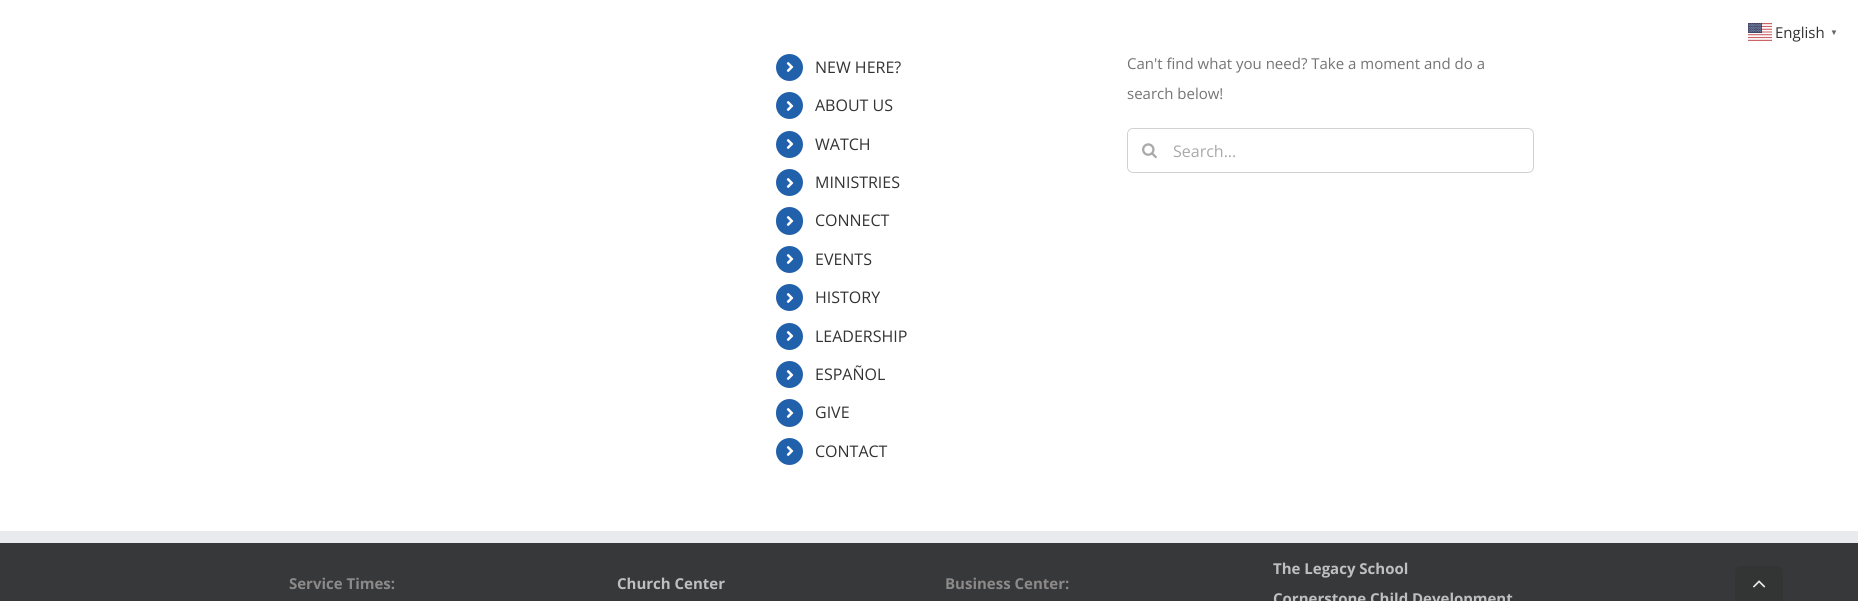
#include <cairo/cairo.h>
#include <math.h>
#include <stddef.h>


static void rounded_rect(cairo_t *cr, double x, double y, double w, double h, double r) {
  cairo_new_sub_path(cr);
  cairo_arc(cr, x + w - r, y + h - r, r, 0, M_PI / 2);
  cairo_arc(cr, x + r, y + h - r, r, M_PI / 2, M_PI);
  cairo_arc(cr, x + r, y + r, r, M_PI, 1.5 * M_PI);
  cairo_arc(cr, x + w - r, y + r, r, 1.5 * M_PI, 2 * M_PI);
  cairo_close_path(cr);
}

static void draw_image(cairo_t *cr, const char *path, double x, double y, double w, double h) {
  cairo_surface_t *image = cairo_image_surface_create_from_png(path);
  cairo_save(cr);
  cairo_set_source_surface(cr, image, x, y);
  cairo_rectangle(cr, x, y, w, h);
  cairo_fill(cr);
  cairo_restore(cr);
  cairo_surface_destroy(image);
}

static void draw(cairo_t *cr) {
  cairo_set_source_rgb(cr, 1, 1, 1);
  cairo_paint(cr);
  draw_image(cr, "images/1.png", 1748, 23, 24, 18);
  cairo_set_source_rgb(cr, 33 / 255.0, 97 / 255.0, 171 / 255.0);
  cairo_arc(cr, 789.5, 67.5, 13.5, 0, 2 * M_PI);
  cairo_fill(cr);
  draw_image(cr, "images/2.png", 786, 62, 8, 10);
  cairo_arc(cr, 789.5, 105.5, 13.5, 0, 2 * M_PI);
  cairo_fill(cr);
  draw_image(cr, "images/2.png", 786, 101, 8, 10);
  cairo_arc(cr, 789.5, 144.5, 13.5, 0, 2 * M_PI);
  cairo_fill(cr);
  draw_image(cr, "images/2.png", 786, 139, 8, 10);
  cairo_arc(cr, 789.5, 182.5, 13.5, 0, 2 * M_PI);
  cairo_fill(cr);
  draw_image(cr, "images/2.png", 786, 178, 8, 10);
  rounded_rect(cr, 776, 207, 27, 28, 13.5);
  cairo_fill(cr);
  draw_image(cr, "images/2.png", 786, 216, 8, 10);
  cairo_arc(cr, 789.5, 259.5, 13.5, 0, 2 * M_PI);
  cairo_fill(cr);
  draw_image(cr, "images/2.png", 786, 254, 8, 10);
  cairo_arc(cr, 789.5, 297.5, 13.5, 0, 2 * M_PI);
  cairo_fill(cr);
  draw_image(cr, "images/2.png", 786, 293, 8, 10);
  cairo_arc(cr, 789.5, 336.5, 13.5, 0, 2 * M_PI);
  cairo_fill(cr);
  draw_image(cr, "images/2.png", 786, 331, 8, 10);
  cairo_arc(cr, 789.5, 374.5, 13.5, 0, 2 * M_PI);
  cairo_fill(cr);
  draw_image(cr, "images/2.png", 786, 370, 8, 10);
  rounded_rect(cr, 776, 399, 27, 28, 13.5);
  cairo_fill(cr);
  draw_image(cr, "images/2.png", 786, 408, 8, 10);
  cairo_arc(cr, 789.5, 451.5, 13.5, 0, 2 * M_PI);
  cairo_fill(cr);
  draw_image(cr, "images/2.png", 786, 446, 8, 10);
  rounded_rect(cr, 1127.5, 128.5, 406, 44, 5.5);
  cairo_set_source_rgb(cr, 210 / 255.0, 210 / 255.0, 210 / 255.0);
  cairo_set_line_width(cr, 1);
  cairo_stroke(cr);
  draw_image(cr, "images/3.png", 1142, 143, 15, 16);
  cairo_set_source_rgb(cr, 54 / 255.0, 56 / 255.0, 57 / 255.0);
  cairo_rectangle(cr, 0, 543, 1858, 58);
  cairo_fill(cr);
  cairo_set_source_rgb(cr, 233 / 255.0, 234 / 255.0, 238 / 255.0);
  cairo_rectangle(cr, 0, 531, 1858, 12);
  cairo_fill(cr);
  cairo_set_source_rgb(cr, 51 / 255.0, 52 / 255.0, 52 / 255.0);
  cairo_new_path(cr);
  cairo_move_to(cr, 1741, 566);
  cairo_line_to(cr, 1777, 566);
  cairo_curve_to(cr, 1780.5, 566, 1783, 568.5, 1783, 572);
  cairo_line_to(cr, 1783, 601);
  cairo_line_to(cr, 1735, 601);
  cairo_line_to(cr, 1735, 572);
  cairo_curve_to(cr, 1735, 568.5, 1737.5, 566, 1741, 566);
  cairo_close_path(cr);
  cairo_fill(cr);
  draw_image(cr, "images/4.png", 1753, 580, 13, 8);
  cairo_select_font_face(cr, "Open Sans", CAIRO_FONT_SLANT_NORMAL, CAIRO_FONT_WEIGHT_NORMAL);
  cairo_set_font_size(cr, 15);
  cairo_set_source_rgb(cr, 51 / 255.0, 51 / 255.0, 51 / 255.0);
  cairo_move_to(cr, 1775, 38);
  cairo_show_text(cr, "English");
  cairo_select_font_face(cr, "Liberation Sans", CAIRO_FONT_SLANT_NORMAL, CAIRO_FONT_WEIGHT_BOLD);
  cairo_set_font_size(cr, 8);
  cairo_set_source_rgb(cr, 102 / 255.0, 102 / 255.0, 102 / 255.0);
  cairo_move_to(cr, 1830, 35);
  cairo_show_text(cr, "▼");
  cairo_select_font_face(cr, "Open Sans", CAIRO_FONT_SLANT_NORMAL, CAIRO_FONT_WEIGHT_NORMAL);
  cairo_set_font_size(cr, 16);
  cairo_set_source_rgb(cr, 51 / 255.0, 51 / 255.0, 51 / 255.0);
  cairo_move_to(cr, 815, 73);
  cairo_show_text(cr, "NEW HERE?");
  cairo_move_to(cr, 815, 111);
  cairo_show_text(cr, "ABOUT US");
  cairo_move_to(cr, 815, 150);
  cairo_show_text(cr, "WATCH");
  cairo_move_to(cr, 815, 188);
  cairo_show_text(cr, "MINISTRIES");
  cairo_move_to(cr, 815, 226);
  cairo_show_text(cr, "CONNECT");
  cairo_move_to(cr, 815, 265);
  cairo_show_text(cr, "EVENTS");
  cairo_move_to(cr, 815, 303);
  cairo_show_text(cr, "HISTORY");
  cairo_move_to(cr, 815, 342);
  cairo_show_text(cr, "LEADERSHIP");
  cairo_move_to(cr, 815, 380);
  cairo_show_text(cr, "ESPAÑOL");
  cairo_move_to(cr, 815, 418);
  cairo_show_text(cr, "GIVE");
  cairo_move_to(cr, 815, 457);
  cairo_show_text(cr, "CONTACT");
  cairo_set_font_size(cr, 15);
  cairo_set_source_rgb(cr, 116 / 255.0, 116 / 255.0, 116 / 255.0);
  cairo_move_to(cr, 1127, 69);
  cairo_show_text(cr, "Can't find what you need? Take a moment and do a");
  cairo_move_to(cr, 1127, 99);
  cairo_show_text(cr, "search below!");
  cairo_set_font_size(cr, 16);
  cairo_set_source_rgb(cr, 170 / 255.0, 169 / 255.0, 169 / 255.0);
  cairo_move_to(cr, 1173, 157);
  cairo_show_text(cr, "Search...");
  cairo_select_font_face(cr, "Open Sans", CAIRO_FONT_SLANT_NORMAL, CAIRO_FONT_WEIGHT_BOLD);
  cairo_set_font_size(cr, 15);
  cairo_set_source_rgb(cr, 140 / 255.0, 137 / 255.0, 137 / 255.0);
  cairo_move_to(cr, 289, 589);
  cairo_show_text(cr, "Service Times:");
  cairo_set_source_rgb(cr, 191 / 255.0, 191 / 255.0, 191 / 255.0);
  cairo_move_to(cr, 617, 589);
  cairo_show_text(cr, "Church Center");
  cairo_set_source_rgb(cr, 140 / 255.0, 137 / 255.0, 137 / 255.0);
  cairo_move_to(cr, 945, 589);
  cairo_show_text(cr, "Business Center:");
  cairo_set_source_rgb(cr, 191 / 255.0, 191 / 255.0, 191 / 255.0);
  cairo_move_to(cr, 1273, 574);
  cairo_show_text(cr, "The Legacy School");
  cairo_move_to(cr, 1273, 604);
  cairo_show_text(cr, "Cornerstone Child Development");
}

int main(void) {
  cairo_surface_t *surface = cairo_image_surface_create(CAIRO_FORMAT_RGB24, 1858, 601);
  cairo_t *cr = cairo_create(surface);
  cairo_font_options_t *options = cairo_font_options_create();
  cairo_font_options_set_hint_metrics(options, CAIRO_HINT_METRICS_OFF);
  cairo_font_options_set_hint_style(options, CAIRO_HINT_STYLE_NONE);
  cairo_set_font_options(cr, options);
  cairo_set_miter_limit(cr, 4);
  draw(cr);
  cairo_surface_write_to_png(surface, "out.png");
  cairo_font_options_destroy(options);
  cairo_destroy(cr);
  cairo_surface_destroy(surface);
  return 0;
}
